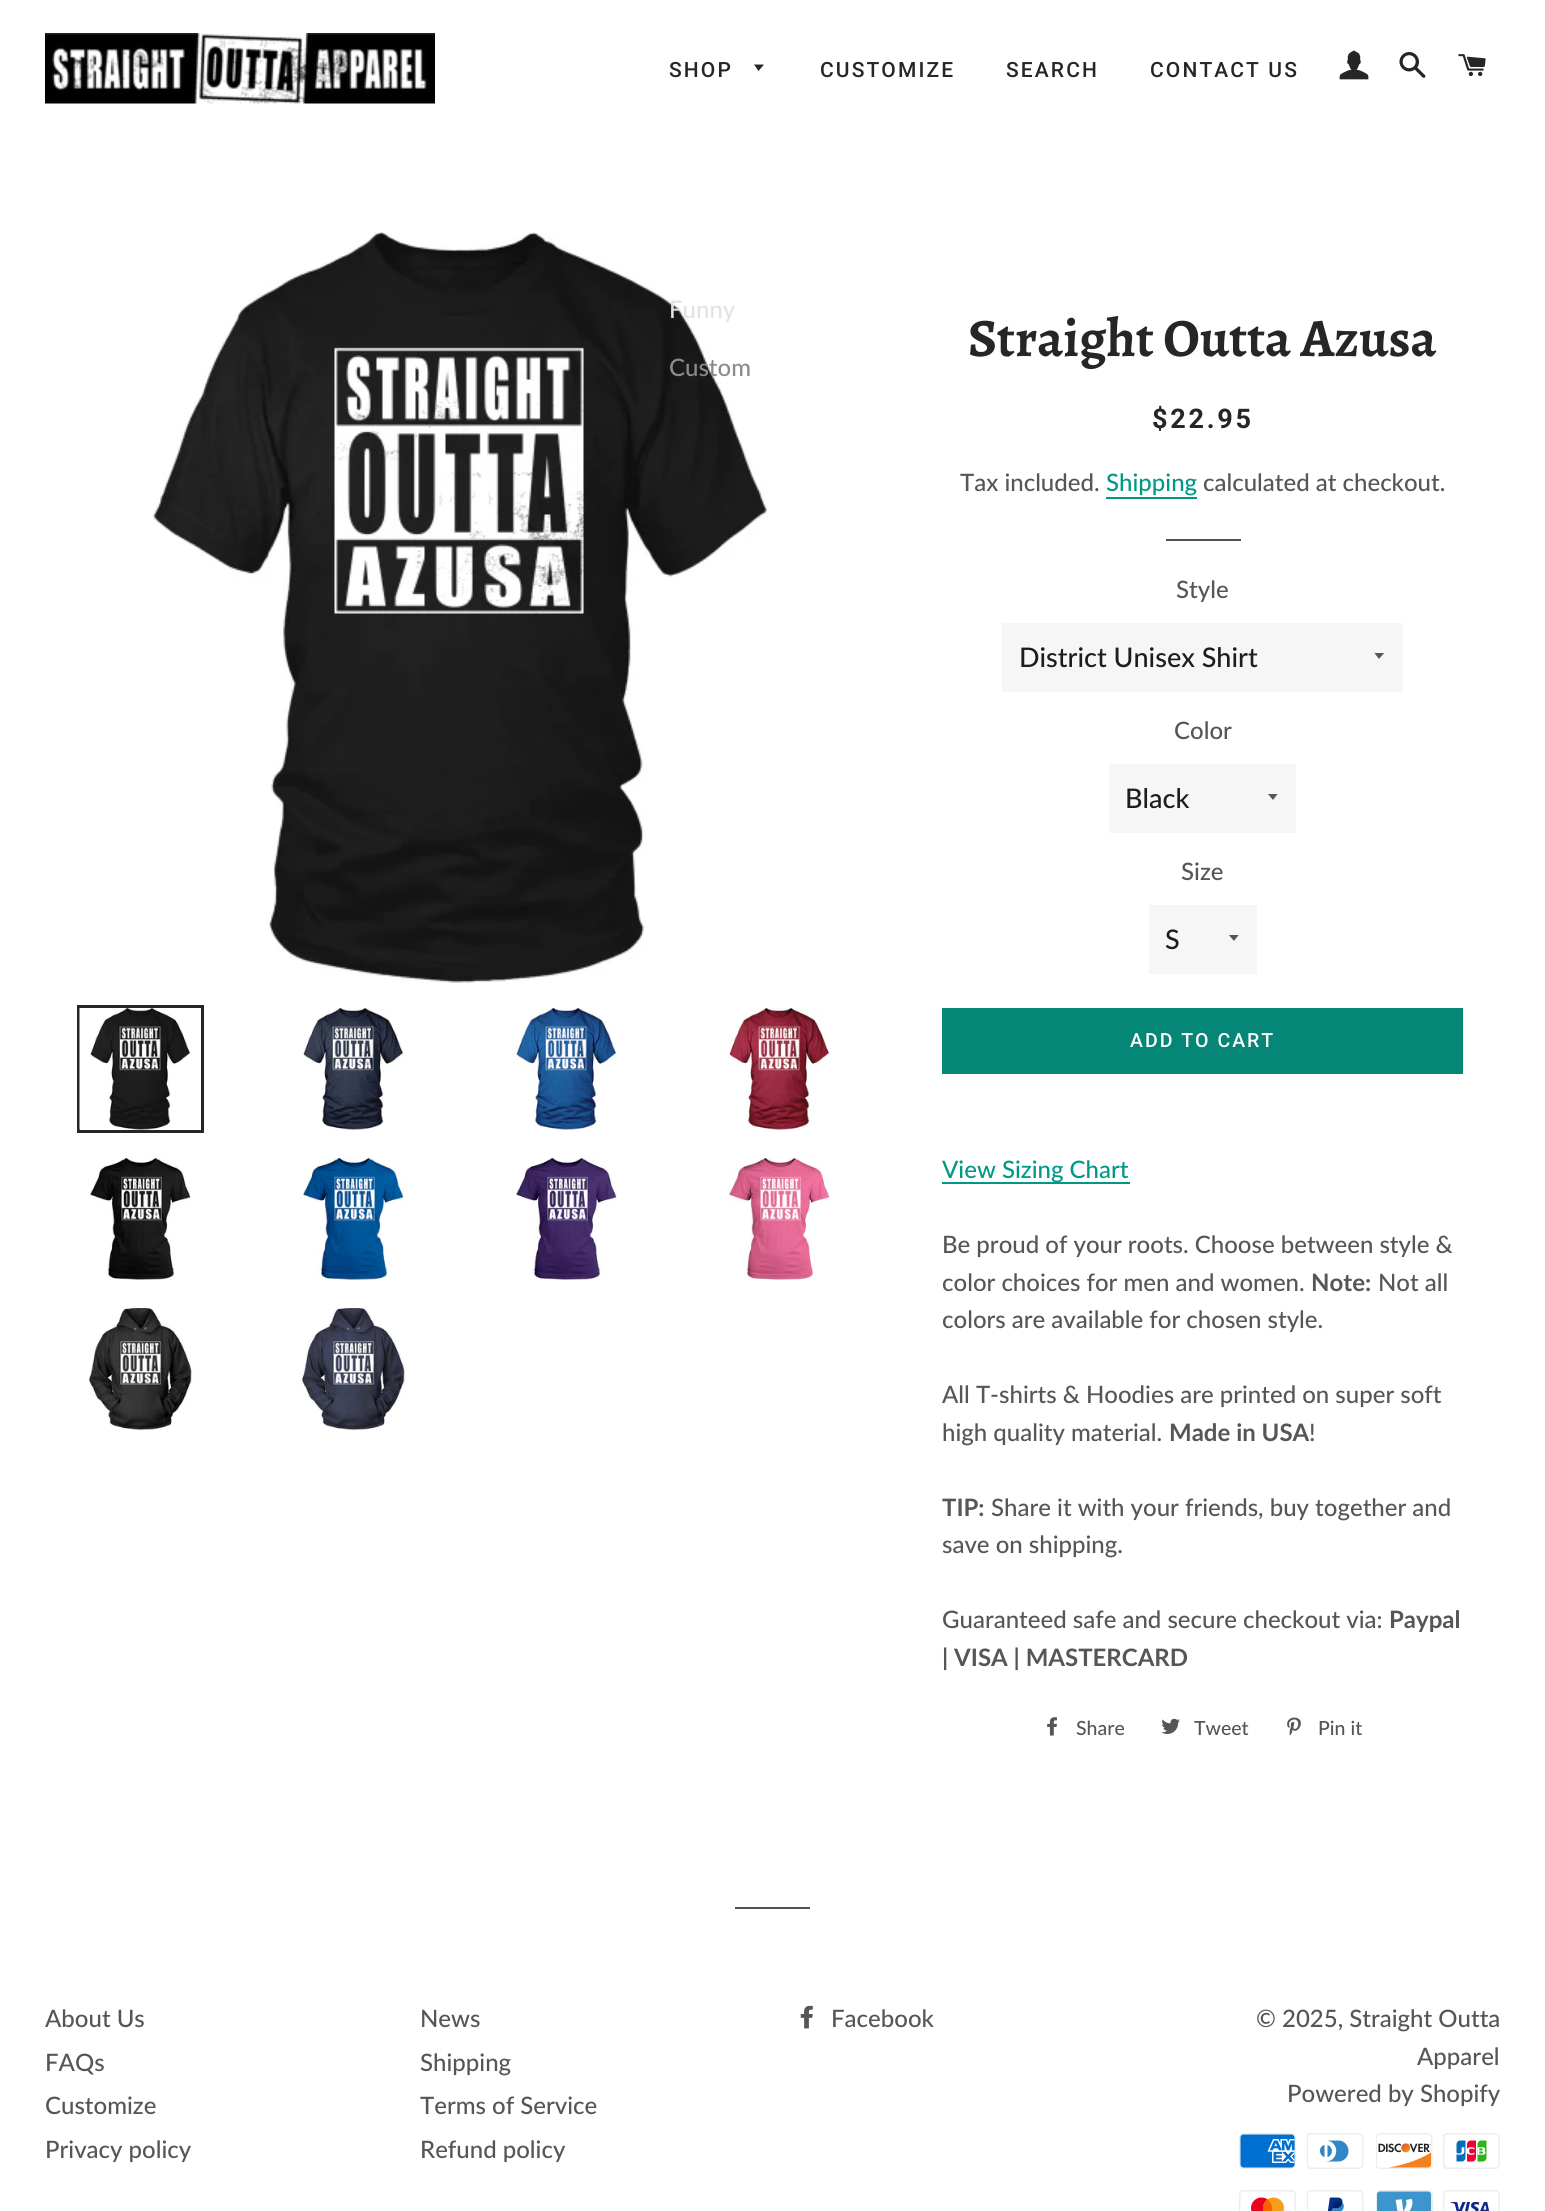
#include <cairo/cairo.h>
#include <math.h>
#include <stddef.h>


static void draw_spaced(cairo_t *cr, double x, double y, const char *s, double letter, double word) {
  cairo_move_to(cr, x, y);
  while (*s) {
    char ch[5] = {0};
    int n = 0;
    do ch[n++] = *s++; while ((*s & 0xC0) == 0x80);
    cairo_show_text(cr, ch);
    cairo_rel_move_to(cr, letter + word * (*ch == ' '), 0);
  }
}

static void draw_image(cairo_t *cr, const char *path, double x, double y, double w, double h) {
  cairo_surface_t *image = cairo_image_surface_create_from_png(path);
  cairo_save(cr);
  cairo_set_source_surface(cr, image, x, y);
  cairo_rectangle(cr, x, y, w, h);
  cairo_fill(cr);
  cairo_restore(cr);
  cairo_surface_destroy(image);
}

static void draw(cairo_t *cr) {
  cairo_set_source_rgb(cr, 1, 1, 1);
  cairo_paint(cr);
  draw_image(cr, "images/1.png", 45, 33, 390, 71);
  cairo_set_source_rgb(cr, 38 / 255.0, 38 / 255.0, 38 / 255.0);
  cairo_new_path(cr);
  cairo_move_to(cr, 754, 64.5);
  cairo_line_to(cr, 758.5, 71);
  cairo_line_to(cr, 764, 64.5);
  cairo_close_path(cr);
  cairo_fill(cr);
  draw_image(cr, "images/2.png", 1339, 50, 30, 30);
  draw_image(cr, "images/3.png", 1399, 52, 27, 26);
  draw_image(cr, "images/4.png", 1458, 54, 28, 23);
  draw_image(cr, "images/5.png", 152, 232, 617, 751);
  cairo_rectangle(cr, 78.5, 1006.5, 124, 125);
  cairo_set_line_width(cr, 3);
  cairo_stroke(cr);
  draw_image(cr, "images/6.png", 79, 1008, 112, 122);
  draw_image(cr, "images/7.png", 303, 1008, 101, 122);
  draw_image(cr, "images/8.png", 512, 1008, 105, 122);
  draw_image(cr, "images/9.png", 725, 1008, 106, 122);
  draw_image(cr, "images/10.png", 89, 1158, 102, 122);
  draw_image(cr, "images/11.png", 302, 1158, 102, 122);
  draw_image(cr, "images/12.png", 516, 1158, 101, 122);
  draw_image(cr, "images/13.png", 729, 1158, 101, 122);
  draw_image(cr, "images/14.png", 89, 1308, 104, 122);
  draw_image(cr, "images/15.png", 302, 1308, 104, 122);
  cairo_set_source_rgb(cr, 1 / 255.0, 152 / 255.0, 135 / 255.0);
  cairo_rectangle(cr, 1106, 497, 91, 2);
  cairo_fill(cr);
  cairo_set_source_rgb(cr, 81 / 255.0, 81 / 255.0, 81 / 255.0);
  cairo_rectangle(cr, 1166, 539, 75, 2);
  cairo_fill(cr);
  cairo_set_source_rgb(cr, 246 / 255.0, 246 / 255.0, 246 / 255.0);
  cairo_rectangle(cr, 1002, 623, 401, 69);
  cairo_fill(cr);
  cairo_save(cr);
  cairo_rectangle(cr, 1374, 653, 12, 7);
  cairo_clip(cr);
  cairo_set_source_rgb(cr, 86 / 255.0, 86 / 255.0, 86 / 255.0);
  cairo_new_path(cr);
  cairo_move_to(cr, 1374, 652.5);
  cairo_line_to(cr, 1379, 659);
  cairo_line_to(cr, 1384.5, 652.5);
  cairo_close_path(cr);
  cairo_fill(cr);
  cairo_restore(cr);
  cairo_rectangle(cr, 1109, 764, 187, 69);
  cairo_fill(cr);
  cairo_save(cr);
  cairo_rectangle(cr, 1268, 794, 12, 7);
  cairo_clip(cr);
  cairo_set_source_rgb(cr, 86 / 255.0, 86 / 255.0, 86 / 255.0);
  cairo_new_path(cr);
  cairo_move_to(cr, 1267.5, 793.5);
  cairo_line_to(cr, 1273, 800);
  cairo_line_to(cr, 1278, 793.5);
  cairo_close_path(cr);
  cairo_fill(cr);
  cairo_restore(cr);
  cairo_rectangle(cr, 1149, 905, 108, 69);
  cairo_fill(cr);
  cairo_save(cr);
  cairo_rectangle(cr, 1229, 935, 12, 7);
  cairo_clip(cr);
  cairo_set_source_rgb(cr, 86 / 255.0, 86 / 255.0, 86 / 255.0);
  cairo_new_path(cr);
  cairo_move_to(cr, 1228.5, 934.5);
  cairo_line_to(cr, 1234, 941);
  cairo_line_to(cr, 1239, 934.5);
  cairo_close_path(cr);
  cairo_fill(cr);
  cairo_restore(cr);
  cairo_set_source_rgb(cr, 5 / 255.0, 134 / 255.0, 119 / 255.0);
  cairo_rectangle(cr, 942, 1008, 521, 66);
  cairo_fill(cr);
  cairo_set_source_rgb(cr, 1 / 255.0, 152 / 255.0, 135 / 255.0);
  cairo_rectangle(cr, 942, 1182, 188, 2);
  cairo_fill(cr);
  draw_image(cr, "images/16.png", 1047, 1717, 10, 19);
  draw_image(cr, "images/17.png", 1161, 1718, 19, 16);
  draw_image(cr, "images/18.png", 1287, 1717, 14, 19);
  cairo_set_source_rgb(cr, 81 / 255.0, 81 / 255.0, 81 / 255.0);
  cairo_rectangle(cr, 735, 1907, 75, 2);
  cairo_fill(cr);
  draw_image(cr, "images/19.png", 800, 2005, 13, 24);
  draw_image(cr, "images/20.png", 1239, 2133, 57, 36);
  draw_image(cr, "images/21.png", 1307, 2133, 57, 36);
  draw_image(cr, "images/22.png", 1376, 2133, 57, 36);
  draw_image(cr, "images/23.png", 1443, 2133, 57, 36);
  draw_image(cr, "images/24.png", 1239, 2190, 57, 21);
  draw_image(cr, "images/25.png", 1307, 2190, 57, 21);
  draw_image(cr, "images/26.png", 1376, 2190, 57, 21);
  draw_image(cr, "images/27.png", 1443, 2190, 57, 21);
  cairo_select_font_face(cr, "Roboto Medium", CAIRO_FONT_SLANT_NORMAL, CAIRO_FONT_WEIGHT_NORMAL);
  cairo_set_font_size(cr, 21);
  cairo_set_source_rgb(cr, 38 / 255.0, 38 / 255.0, 38 / 255.0);
  draw_spaced(cr, 669, 77, "SHOP", 2.1, 0);
  cairo_select_font_face(cr, "Lato Medium", CAIRO_FONT_SLANT_NORMAL, CAIRO_FONT_WEIGHT_NORMAL);
  cairo_set_font_size(cr, 24);
  cairo_set_source_rgb(cr, 226 / 255.0, 226 / 255.0, 226 / 255.0);
  cairo_move_to(cr, 669, 318);
  cairo_show_text(cr, "Funny");
  cairo_set_source_rgb(cr, 139 / 255.0, 139 / 255.0, 139 / 255.0);
  cairo_move_to(cr, 669, 376);
  cairo_show_text(cr, "Custom");
  cairo_select_font_face(cr, "Roboto Medium", CAIRO_FONT_SLANT_NORMAL, CAIRO_FONT_WEIGHT_NORMAL);
  cairo_set_font_size(cr, 21);
  cairo_set_source_rgb(cr, 38 / 255.0, 38 / 255.0, 38 / 255.0);
  draw_spaced(cr, 820, 77, "CUSTOMIZE", 2.1, 0);
  draw_spaced(cr, 1006, 77, "SEARCH", 2.1, 0);
  draw_spaced(cr, 1150, 77, "CONTACT US", 2.1, 0);
  cairo_select_font_face(cr, "Alegreya", CAIRO_FONT_SLANT_NORMAL, CAIRO_FONT_WEIGHT_BOLD);
  cairo_set_font_size(cr, 54);
  cairo_move_to(cr, 968, 356);
  cairo_show_text(cr, "Straight Outta Azusa");
  cairo_select_font_face(cr, "Roboto", CAIRO_FONT_SLANT_NORMAL, CAIRO_FONT_WEIGHT_BOLD);
  cairo_set_font_size(cr, 27);
  draw_spaced(cr, 1152, 428, "$22.95", 2.75, 0);
  cairo_select_font_face(cr, "Lato Medium", CAIRO_FONT_SLANT_NORMAL, CAIRO_FONT_WEIGHT_NORMAL);
  cairo_set_font_size(cr, 24);
  cairo_set_source_rgb(cr, 86 / 255.0, 86 / 255.0, 86 / 255.0);
  cairo_move_to(cr, 960, 491);
  cairo_show_text(cr, "Tax included.");
  cairo_set_source_rgb(cr, 1 / 255.0, 152 / 255.0, 135 / 255.0);
  cairo_move_to(cr, 1106, 491);
  cairo_show_text(cr, "Shipping");
  cairo_set_source_rgb(cr, 86 / 255.0, 86 / 255.0, 86 / 255.0);
  cairo_move_to(cr, 1203, 491);
  cairo_show_text(cr, "calculated at checkout.");
  cairo_move_to(cr, 1176, 598);
  cairo_show_text(cr, "Style");
  cairo_set_font_size(cr, 27);
  cairo_set_source_rgb(cr, 28 / 255.0, 29 / 255.0, 29 / 255.0);
  cairo_move_to(cr, 1019, 667);
  cairo_show_text(cr, "District Unisex Shirt");
  cairo_set_font_size(cr, 24);
  cairo_set_source_rgb(cr, 86 / 255.0, 86 / 255.0, 86 / 255.0);
  cairo_move_to(cr, 1174, 739);
  cairo_show_text(cr, "Color");
  cairo_set_font_size(cr, 27);
  cairo_set_source_rgb(cr, 28 / 255.0, 29 / 255.0, 29 / 255.0);
  cairo_move_to(cr, 1125, 808);
  cairo_show_text(cr, "Black");
  cairo_set_font_size(cr, 24);
  cairo_set_source_rgb(cr, 86 / 255.0, 86 / 255.0, 86 / 255.0);
  cairo_move_to(cr, 1181, 880);
  cairo_show_text(cr, "Size");
  cairo_set_font_size(cr, 27);
  cairo_set_source_rgb(cr, 28 / 255.0, 29 / 255.0, 29 / 255.0);
  cairo_move_to(cr, 1165, 949);
  cairo_show_text(cr, "S");
  cairo_select_font_face(cr, "Roboto Medium", CAIRO_FONT_SLANT_NORMAL, CAIRO_FONT_WEIGHT_NORMAL);
  cairo_set_font_size(cr, 19.5);
  cairo_set_source_rgb(cr, 1, 1, 1);
  draw_spaced(cr, 1130, 1047, "ADD TO CART", 2, 0);
  cairo_select_font_face(cr, "Lato Medium", CAIRO_FONT_SLANT_NORMAL, CAIRO_FONT_WEIGHT_NORMAL);
  cairo_set_font_size(cr, 24);
  cairo_set_source_rgb(cr, 1 / 255.0, 152 / 255.0, 135 / 255.0);
  cairo_move_to(cr, 942, 1178);
  cairo_show_text(cr, "View Sizing Chart");
  cairo_set_source_rgb(cr, 86 / 255.0, 86 / 255.0, 86 / 255.0);
  cairo_move_to(cr, 942, 1253);
  cairo_show_text(cr, "Be proud of your roots. Choose between style &");
  cairo_move_to(cr, 942, 1291);
  cairo_show_text(cr, "color choices for men and women.");
  cairo_select_font_face(cr, "Lato", CAIRO_FONT_SLANT_NORMAL, CAIRO_FONT_WEIGHT_BOLD);
  cairo_move_to(cr, 1311, 1291);
  cairo_show_text(cr, "Note:");
  cairo_select_font_face(cr, "Lato Medium", CAIRO_FONT_SLANT_NORMAL, CAIRO_FONT_WEIGHT_NORMAL);
  cairo_move_to(cr, 1378, 1291);
  cairo_show_text(cr, "Not all");
  cairo_move_to(cr, 942, 1328);
  cairo_show_text(cr, "colors are available for chosen style.");
  cairo_move_to(cr, 942, 1403);
  cairo_show_text(cr, "All T-shirts & Hoodies are printed on super soft");
  cairo_move_to(cr, 942, 1441);
  cairo_show_text(cr, "high quality material.");
  cairo_select_font_face(cr, "Lato", CAIRO_FONT_SLANT_NORMAL, CAIRO_FONT_WEIGHT_BOLD);
  cairo_move_to(cr, 1169, 1441);
  cairo_show_text(cr, "Made in USA");
  cairo_select_font_face(cr, "Lato Medium", CAIRO_FONT_SLANT_NORMAL, CAIRO_FONT_WEIGHT_NORMAL);
  cairo_move_to(cr, 1309, 1441);
  cairo_show_text(cr, "!");
  cairo_select_font_face(cr, "Lato", CAIRO_FONT_SLANT_NORMAL, CAIRO_FONT_WEIGHT_BOLD);
  cairo_move_to(cr, 942, 1516);
  cairo_show_text(cr, "TIP:");
  cairo_select_font_face(cr, "Lato Medium", CAIRO_FONT_SLANT_NORMAL, CAIRO_FONT_WEIGHT_NORMAL);
  cairo_move_to(cr, 991, 1516);
  cairo_show_text(cr, "Share it with your friends, buy together and");
  cairo_move_to(cr, 942, 1553);
  cairo_show_text(cr, "save on shipping.");
  cairo_move_to(cr, 942, 1628);
  cairo_show_text(cr, "Guaranteed safe and secure checkout via:");
  cairo_select_font_face(cr, "Lato", CAIRO_FONT_SLANT_NORMAL, CAIRO_FONT_WEIGHT_BOLD);
  cairo_move_to(cr, 1389, 1628);
  cairo_show_text(cr, "Paypal");
  cairo_move_to(cr, 942, 1666);
  cairo_show_text(cr, "| VISA | MASTERCARD");
  cairo_select_font_face(cr, "Lato Medium", CAIRO_FONT_SLANT_NORMAL, CAIRO_FONT_WEIGHT_NORMAL);
  cairo_set_font_size(cr, 19.5);
  cairo_move_to(cr, 1076, 1735);
  cairo_show_text(cr, "Share");
  cairo_move_to(cr, 1194, 1735);
  cairo_show_text(cr, "Tweet");
  cairo_move_to(cr, 1318, 1735);
  cairo_show_text(cr, "Pin it");
  cairo_set_font_size(cr, 24);
  cairo_move_to(cr, 45, 2027);
  cairo_show_text(cr, "About Us");
  cairo_move_to(cr, 45, 2071);
  cairo_show_text(cr, "FAQs");
  cairo_move_to(cr, 45, 2114);
  cairo_show_text(cr, "Customize");
  cairo_move_to(cr, 45, 2158);
  cairo_show_text(cr, "Privacy policy");
  cairo_move_to(cr, 420, 2027);
  cairo_show_text(cr, "News");
  cairo_move_to(cr, 420, 2071);
  cairo_show_text(cr, "Shipping");
  cairo_move_to(cr, 420, 2114);
  cairo_show_text(cr, "Terms of Service");
  cairo_move_to(cr, 420, 2158);
  cairo_show_text(cr, "Refund policy");
  cairo_move_to(cr, 831, 2027);
  cairo_show_text(cr, "Facebook");
  cairo_move_to(cr, 1256, 2027);
  cairo_show_text(cr, "© 2025, Straight Outta");
  cairo_move_to(cr, 1417, 2065);
  cairo_show_text(cr, "Apparel");
  cairo_move_to(cr, 1287, 2102);
  cairo_show_text(cr, "Powered by Shopify");
}

int main(void) {
  cairo_surface_t *surface = cairo_image_surface_create(CAIRO_FORMAT_RGB24, 1545, 2211);
  cairo_t *cr = cairo_create(surface);
  cairo_font_options_t *options = cairo_font_options_create();
  cairo_font_options_set_hint_metrics(options, CAIRO_HINT_METRICS_OFF);
  cairo_font_options_set_hint_style(options, CAIRO_HINT_STYLE_NONE);
  cairo_set_font_options(cr, options);
  cairo_set_miter_limit(cr, 4);
  draw(cr);
  cairo_surface_write_to_png(surface, "out.png");
  cairo_font_options_destroy(options);
  cairo_destroy(cr);
  cairo_surface_destroy(surface);
  return 0;
}
